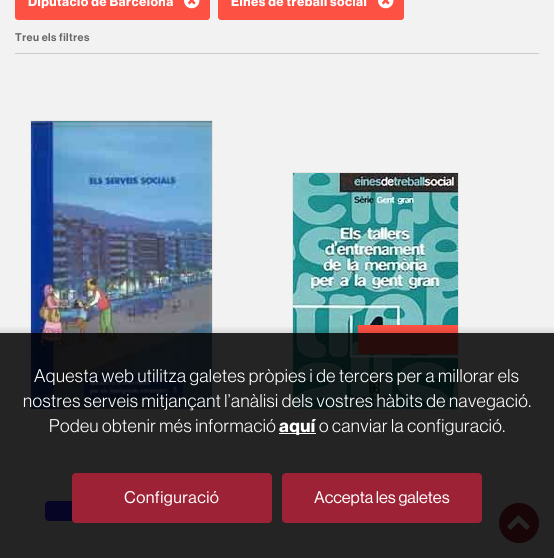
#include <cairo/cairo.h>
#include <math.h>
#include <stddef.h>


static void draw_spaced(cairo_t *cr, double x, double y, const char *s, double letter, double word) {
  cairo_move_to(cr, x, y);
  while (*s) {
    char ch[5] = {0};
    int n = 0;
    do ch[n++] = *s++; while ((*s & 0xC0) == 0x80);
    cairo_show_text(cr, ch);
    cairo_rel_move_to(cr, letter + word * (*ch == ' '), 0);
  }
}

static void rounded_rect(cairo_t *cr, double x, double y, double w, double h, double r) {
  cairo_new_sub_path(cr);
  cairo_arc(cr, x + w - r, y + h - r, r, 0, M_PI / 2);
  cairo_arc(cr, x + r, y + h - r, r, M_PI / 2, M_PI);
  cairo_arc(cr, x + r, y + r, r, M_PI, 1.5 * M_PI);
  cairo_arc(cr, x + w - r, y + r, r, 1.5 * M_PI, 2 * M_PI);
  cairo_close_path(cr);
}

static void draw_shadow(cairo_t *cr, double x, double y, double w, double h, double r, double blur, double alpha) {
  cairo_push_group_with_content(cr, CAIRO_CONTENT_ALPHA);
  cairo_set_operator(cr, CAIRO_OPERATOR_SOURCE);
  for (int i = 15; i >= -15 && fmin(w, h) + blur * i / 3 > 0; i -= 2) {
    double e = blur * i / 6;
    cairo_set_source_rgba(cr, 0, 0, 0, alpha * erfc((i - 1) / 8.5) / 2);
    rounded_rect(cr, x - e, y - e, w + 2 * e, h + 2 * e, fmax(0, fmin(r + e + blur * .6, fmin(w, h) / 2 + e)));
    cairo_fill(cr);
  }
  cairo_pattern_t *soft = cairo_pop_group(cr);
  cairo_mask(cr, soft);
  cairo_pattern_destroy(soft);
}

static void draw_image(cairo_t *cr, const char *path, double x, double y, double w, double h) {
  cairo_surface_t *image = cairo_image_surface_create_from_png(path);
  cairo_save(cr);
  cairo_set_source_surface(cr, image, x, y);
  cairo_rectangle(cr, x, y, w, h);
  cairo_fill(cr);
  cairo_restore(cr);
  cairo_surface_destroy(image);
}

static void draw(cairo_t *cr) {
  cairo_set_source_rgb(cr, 242 / 255.0, 242 / 255.0, 242 / 255.0);
  cairo_paint(cr);
  cairo_set_source_rgb(cr, 204 / 255.0, 204 / 255.0, 204 / 255.0);
  cairo_rectangle(cr, 15, 53, 524, 1);
  cairo_fill(cr);
  cairo_set_source_rgb(cr, 253 / 255.0, 81 / 255.0, 68 / 255.0);
  rounded_rect(cr, 15, -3, 195, 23, 3);
  cairo_fill(cr);
  draw_image(cr, "images/1.png", 184, 0, 16, 9);
  rounded_rect(cr, 218, -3, 186, 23, 3);
  cairo_fill(cr);
  draw_image(cr, "images/1.png", 378, 0, 16, 9);
  cairo_rectangle(cr, 30.5, 120.5, 182, 289);
  cairo_set_source_rgb(cr, 228 / 255.0, 228 / 255.0, 228 / 255.0);
  cairo_set_line_width(cr, 1);
  cairo_stroke(cr);
  draw_image(cr, "images/2.png", 31, 121, 181, 288);
  cairo_set_source_rgb(cr, 40 / 255.0, 32 / 255.0, 1);
  rounded_rect(cr, 45, 501, 58, 20, 4);
  cairo_fill(cr);
  cairo_rectangle(cr, 292.5, 172.5, 166, 237);
  cairo_set_source_rgb(cr, 228 / 255.0, 228 / 255.0, 228 / 255.0);
  cairo_stroke(cr);
  draw_image(cr, "images/3.png", 293, 173, 165, 236);
  cairo_set_source_rgb(cr, 253 / 255.0, 81 / 255.0, 68 / 255.0);
  cairo_rectangle(cr, 358, 325, 100, 29);
  cairo_fill(cr);
  cairo_set_source_rgb(cr, 157 / 255.0, 34 / 255.0, 53 / 255.0);
  cairo_arc(cr, 519, 523, 20, 0, 2 * M_PI);
  cairo_fill(cr);
  draw_image(cr, "images/4.png", 507, 515, 23, 15);
  cairo_save(cr);
  cairo_rectangle(cr, 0, 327, 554, 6);
  cairo_clip(cr);
  cairo_set_source_rgb(cr, 0, 0, 0);
  draw_shadow(cr, -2, 331, 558, 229, 0, 4, 0.15);
  cairo_restore(cr);
  cairo_set_source_rgba(cr, 0, 0, 0, 0.85);
  cairo_rectangle(cr, 0, 333, 554, 225);
  cairo_fill(cr);
  cairo_set_source_rgb(cr, 1, 1, 1);
  cairo_rectangle(cr, 279, 433, 37, 1);
  cairo_fill(cr);
  cairo_set_source_rgb(cr, 157 / 255.0, 34 / 255.0, 53 / 255.0);
  rounded_rect(cr, 72.5, 473.5, 199, 49, 3.5);
  cairo_fill_preserve(cr);
  cairo_stroke(cr);
  rounded_rect(cr, 282.5, 473.5, 199, 49, 3.5);
  cairo_fill_preserve(cr);
  cairo_stroke(cr);
  cairo_select_font_face(cr, "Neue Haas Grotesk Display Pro", CAIRO_FONT_SLANT_NORMAL, CAIRO_FONT_WEIGHT_BOLD);
  cairo_set_font_size(cr, 13);
  cairo_set_source_rgb(cr, 1, 1, 1);
  draw_spaced(cr, 28, 6, "Diputació de Barcelona", 0.45, 0);
  draw_spaced(cr, 231, 6, "Eines de treball social", 0.45, 0);
  cairo_select_font_face(cr, "Neue Haas Grotesk Display Pro Medium", CAIRO_FONT_SLANT_NORMAL, CAIRO_FONT_WEIGHT_NORMAL);
  cairo_set_font_size(cr, 11);
  cairo_set_source_rgb(cr, 102 / 255.0, 102 / 255.0, 102 / 255.0);
  draw_spaced(cr, 15, 41, "Treu els filtres", 0.45, 0);
  cairo_select_font_face(cr, "Neue Haas Grotesk Display Pro", CAIRO_FONT_SLANT_NORMAL, CAIRO_FONT_WEIGHT_NORMAL);
  cairo_set_font_size(cr, 18);
  cairo_set_source_rgb(cr, 1, 1, 1);
  draw_spaced(cr, 34, 382, "Aquesta web utilitza galetes pròpies i de tercers per a millorar els", 0.45, 0);
  draw_spaced(cr, 23, 407, "nostres serveis mitjançant l’anàlisi dels vostres hàbits de navegació.", 0.45, 0);
  draw_spaced(cr, 49, 432, "Podeu obtenir més informació", 0.45, 0);
  cairo_select_font_face(cr, "Neue Haas Grotesk Display Pro", CAIRO_FONT_SLANT_NORMAL, CAIRO_FONT_WEIGHT_BOLD);
  draw_spaced(cr, 279, 432, "aquí", 0.45, 0);
  cairo_select_font_face(cr, "Neue Haas Grotesk Display Pro", CAIRO_FONT_SLANT_NORMAL, CAIRO_FONT_WEIGHT_NORMAL);
  draw_spaced(cr, 319, 432, "o canviar la configuració.", 0.45, 0);
  cairo_select_font_face(cr, "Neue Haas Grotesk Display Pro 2 Medium", CAIRO_FONT_SLANT_NORMAL, CAIRO_FONT_WEIGHT_NORMAL);
  cairo_set_font_size(cr, 16.5);
  draw_spaced(cr, 124, 503, "Configuració", 0.45, 0);
  cairo_move_to(cr, 314, 503);
  cairo_show_text(cr, "Accepta les galetes");
}

int main(void) {
  cairo_surface_t *surface = cairo_image_surface_create(CAIRO_FORMAT_RGB24, 554, 558);
  cairo_t *cr = cairo_create(surface);
  cairo_font_options_t *options = cairo_font_options_create();
  cairo_font_options_set_hint_metrics(options, CAIRO_HINT_METRICS_OFF);
  cairo_font_options_set_hint_style(options, CAIRO_HINT_STYLE_NONE);
  cairo_set_font_options(cr, options);
  cairo_set_miter_limit(cr, 4);
  draw(cr);
  cairo_surface_write_to_png(surface, "out.png");
  cairo_font_options_destroy(options);
  cairo_destroy(cr);
  cairo_surface_destroy(surface);
  return 0;
}
